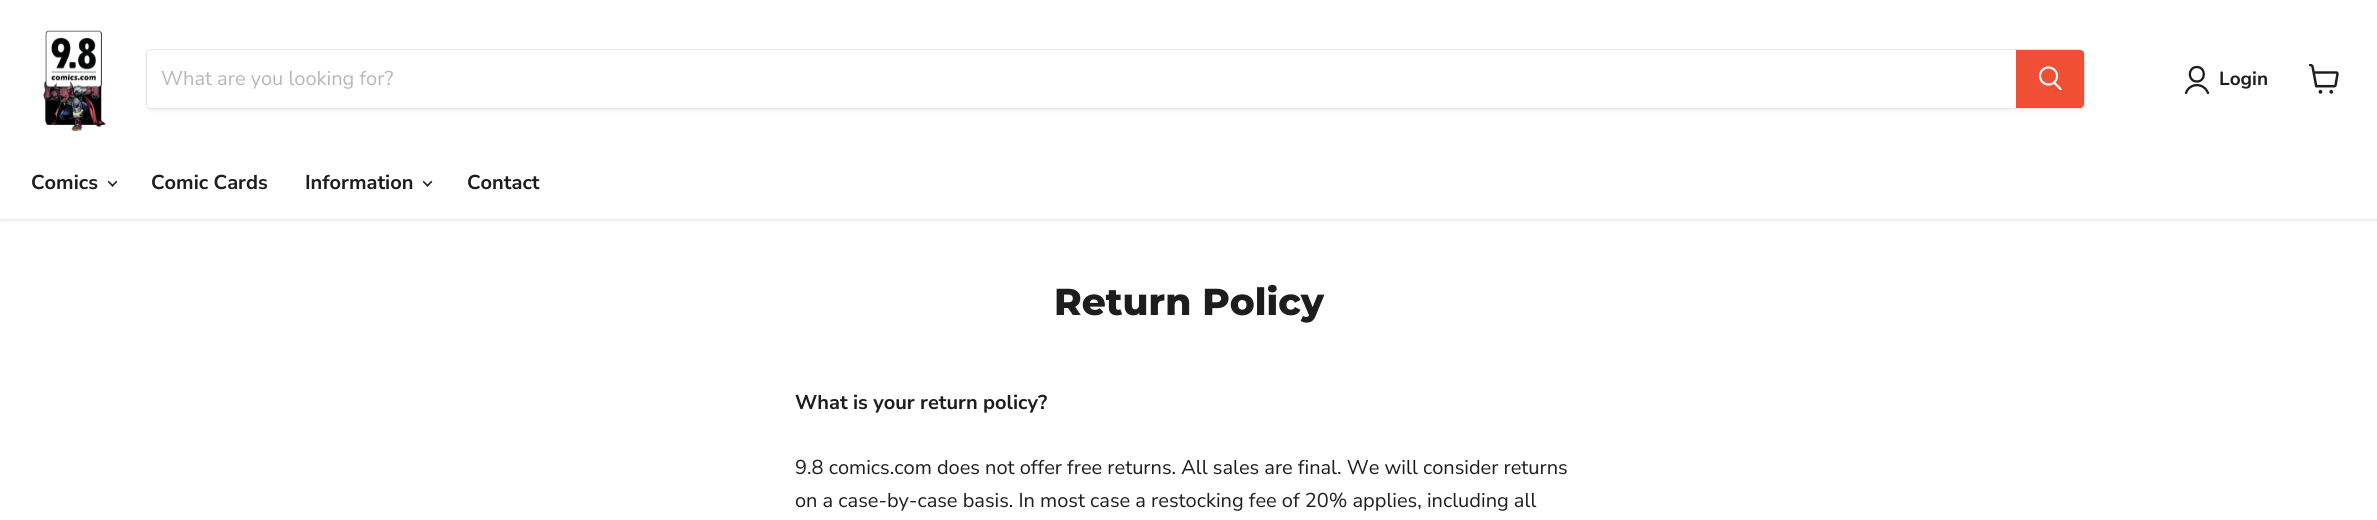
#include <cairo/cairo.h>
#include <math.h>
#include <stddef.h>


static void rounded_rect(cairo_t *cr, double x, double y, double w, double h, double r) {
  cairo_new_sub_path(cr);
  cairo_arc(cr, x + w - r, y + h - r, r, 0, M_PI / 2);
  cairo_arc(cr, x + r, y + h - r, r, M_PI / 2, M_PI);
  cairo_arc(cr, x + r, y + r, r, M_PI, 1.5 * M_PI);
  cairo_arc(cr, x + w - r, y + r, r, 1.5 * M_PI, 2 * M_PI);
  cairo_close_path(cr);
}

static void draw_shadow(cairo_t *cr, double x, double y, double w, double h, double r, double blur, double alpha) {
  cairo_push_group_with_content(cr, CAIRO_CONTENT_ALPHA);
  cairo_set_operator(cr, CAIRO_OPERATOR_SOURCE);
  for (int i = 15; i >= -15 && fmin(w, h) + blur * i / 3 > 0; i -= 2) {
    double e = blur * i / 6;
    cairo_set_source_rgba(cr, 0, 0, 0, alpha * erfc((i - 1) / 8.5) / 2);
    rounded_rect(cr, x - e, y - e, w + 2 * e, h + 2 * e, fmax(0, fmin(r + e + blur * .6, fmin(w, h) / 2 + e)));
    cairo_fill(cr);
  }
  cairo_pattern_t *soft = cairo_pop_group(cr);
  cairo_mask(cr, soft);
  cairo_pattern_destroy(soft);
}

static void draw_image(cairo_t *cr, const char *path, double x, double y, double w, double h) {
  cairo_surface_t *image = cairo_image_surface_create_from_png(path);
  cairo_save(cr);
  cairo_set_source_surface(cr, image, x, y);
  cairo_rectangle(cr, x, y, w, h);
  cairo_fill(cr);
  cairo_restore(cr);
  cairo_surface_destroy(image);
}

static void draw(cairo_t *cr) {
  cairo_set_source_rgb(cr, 1, 1, 1);
  cairo_paint(cr);
  cairo_set_source_rgb(cr, 128 / 255.0, 128 / 255.0, 128 / 255.0);
  draw_shadow(cr, 0, 1, 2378, 219, 0, 2.5, 0.25);
  cairo_set_source_rgb(cr, 1, 1, 1);
  cairo_rectangle(cr, 0, 0, 2377, 219);
  cairo_fill(cr);
  draw_image(cr, "images/1.png", 43, 30, 63, 101);
  cairo_save(cr);
  cairo_set_fill_rule(cr, CAIRO_FILL_RULE_EVEN_ODD);
  cairo_new_path(cr);
  cairo_move_to(cr, 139, 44);
  cairo_line_to(cr, 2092, 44);
  cairo_line_to(cr, 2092, 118);
  cairo_line_to(cr, 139, 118);
  cairo_close_path(cr);
  cairo_move_to(cr, 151, 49);
  cairo_line_to(cr, 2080, 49);
  cairo_curve_to(cr, 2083, 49, 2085, 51, 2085, 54);
  cairo_line_to(cr, 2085, 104);
  cairo_curve_to(cr, 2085, 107, 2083, 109, 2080, 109);
  cairo_line_to(cr, 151, 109);
  cairo_curve_to(cr, 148, 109, 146, 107, 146, 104);
  cairo_line_to(cr, 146, 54);
  cairo_curve_to(cr, 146, 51, 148, 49, 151, 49);
  cairo_close_path(cr);
  cairo_clip(cr);
  cairo_set_source_rgb(cr, 128 / 255.0, 128 / 255.0, 128 / 255.0);
  draw_shadow(cr, 146, 51, 1939, 60, 5, 2, 0.11);
  cairo_restore(cr);
  rounded_rect(cr, 146.5, 49.5, 1938, 59, 4.5);
  cairo_set_source_rgba(cr, 128 / 255.0, 128 / 255.0, 128 / 255.0, 0.2);
  cairo_set_line_width(cr, 1);
  cairo_stroke(cr);
  cairo_set_source_rgb(cr, 240 / 255.0, 79 / 255.0, 54 / 255.0);
  cairo_new_path(cr);
  cairo_move_to(cr, 2016.5, 50.5);
  cairo_line_to(cr, 2080, 50.5);
  cairo_curve_to(cr, 2082, 50.5, 2083.5, 52, 2083.5, 54);
  cairo_line_to(cr, 2083.5, 104);
  cairo_curve_to(cr, 2083.5, 106, 2082, 107.5, 2080, 107.5);
  cairo_line_to(cr, 2016.5, 107.5);
  cairo_close_path(cr);
  cairo_fill_preserve(cr);
  cairo_stroke(cr);
  cairo_new_path(cr);
  cairo_move_to(cr, 2060.5, 89);
  cairo_line_to(cr, 2054.5, 83);
  cairo_set_source_rgb(cr, 1, 1, 1);
  cairo_set_line_width(cr, 2.2);
  cairo_set_line_cap(cr, CAIRO_LINE_CAP_ROUND);
  cairo_stroke(cr);
  cairo_arc(cr, 2048.5, 76, 8.5, 0, 2 * M_PI);
  cairo_set_line_cap(cr, CAIRO_LINE_CAP_BUTT);
  cairo_stroke(cr);
  cairo_new_path(cr);
  cairo_move_to(cr, 2197, 81.5);
  cairo_curve_to(cr, 2206, 81.5, 2206, 67, 2197, 67);
  cairo_curve_to(cr, 2187.5, 67, 2187.5, 81.5, 2197, 81.5);
  cairo_close_path(cr);
  cairo_move_to(cr, 2208, 93);
  cairo_curve_to(cr, 2204, 82.5, 2189.5, 82.5, 2186, 93);
  cairo_set_source_rgb(cr, 29 / 255.0, 29 / 255.0, 29 / 255.0);
  cairo_set_line_width(cr, 2.3);
  cairo_set_line_cap(cr, CAIRO_LINE_CAP_ROUND);
  cairo_set_line_join(cr, CAIRO_LINE_JOIN_ROUND);
  cairo_stroke(cr);
  draw_image(cr, "images/2.png", 2309, 64, 30, 30);
  draw_image(cr, "images/3.png", 108, 180, 10, 7);
  draw_image(cr, "images/3.png", 423, 180, 10, 7);
  cairo_select_font_face(cr, "Nunito Sans", CAIRO_FONT_SLANT_NORMAL, CAIRO_FONT_WEIGHT_NORMAL);
  cairo_set_font_size(cr, 20);
  cairo_set_source_rgb(cr, 184 / 255.0, 184 / 255.0, 184 / 255.0);
  cairo_move_to(cr, 161, 85);
  cairo_show_text(cr, "What are you looking for?");
  cairo_select_font_face(cr, "Nunito Sans", CAIRO_FONT_SLANT_NORMAL, CAIRO_FONT_WEIGHT_BOLD);
  cairo_set_font_size(cr, 19);
  cairo_set_source_rgb(cr, 29 / 255.0, 29 / 255.0, 29 / 255.0);
  cairo_move_to(cr, 2219, 85);
  cairo_show_text(cr, "Login");
  cairo_set_font_size(cr, 20);
  cairo_move_to(cr, 31, 189);
  cairo_show_text(cr, "Comics");
  cairo_move_to(cr, 151, 189);
  cairo_show_text(cr, "Comic Cards");
  cairo_move_to(cr, 305, 189);
  cairo_show_text(cr, "Information");
  cairo_move_to(cr, 467, 189);
  cairo_show_text(cr, "Contact");
  cairo_select_font_face(cr, "Montserrat ExtraBold", CAIRO_FONT_SLANT_NORMAL, CAIRO_FONT_WEIGHT_NORMAL);
  cairo_set_font_size(cr, 37.5);
  cairo_move_to(cr, 1054, 315);
  cairo_show_text(cr, "Return Policy");
  cairo_select_font_face(cr, "Nunito Sans", CAIRO_FONT_SLANT_NORMAL, CAIRO_FONT_WEIGHT_BOLD);
  cairo_set_font_size(cr, 20);
  cairo_move_to(cr, 795, 409);
  cairo_show_text(cr, "What is your return policy?");
  cairo_select_font_face(cr, "Nunito Sans", CAIRO_FONT_SLANT_NORMAL, CAIRO_FONT_WEIGHT_NORMAL);
  cairo_move_to(cr, 795, 474);
  cairo_show_text(cr, "9.8 comics.com does not offer free returns. All sales are final. We will consider returns");
  cairo_move_to(cr, 795, 507);
  cairo_show_text(cr, "on a case-by-case basis. In most case a restocking fee of 20% applies, including all");
}

int main(void) {
  cairo_surface_t *surface = cairo_image_surface_create(CAIRO_FORMAT_RGB24, 2377, 520);
  cairo_t *cr = cairo_create(surface);
  cairo_font_options_t *options = cairo_font_options_create();
  cairo_font_options_set_hint_metrics(options, CAIRO_HINT_METRICS_OFF);
  cairo_font_options_set_hint_style(options, CAIRO_HINT_STYLE_NONE);
  cairo_set_font_options(cr, options);
  cairo_set_miter_limit(cr, 4);
  draw(cr);
  cairo_surface_write_to_png(surface, "out.png");
  cairo_font_options_destroy(options);
  cairo_destroy(cr);
  cairo_surface_destroy(surface);
  return 0;
}
